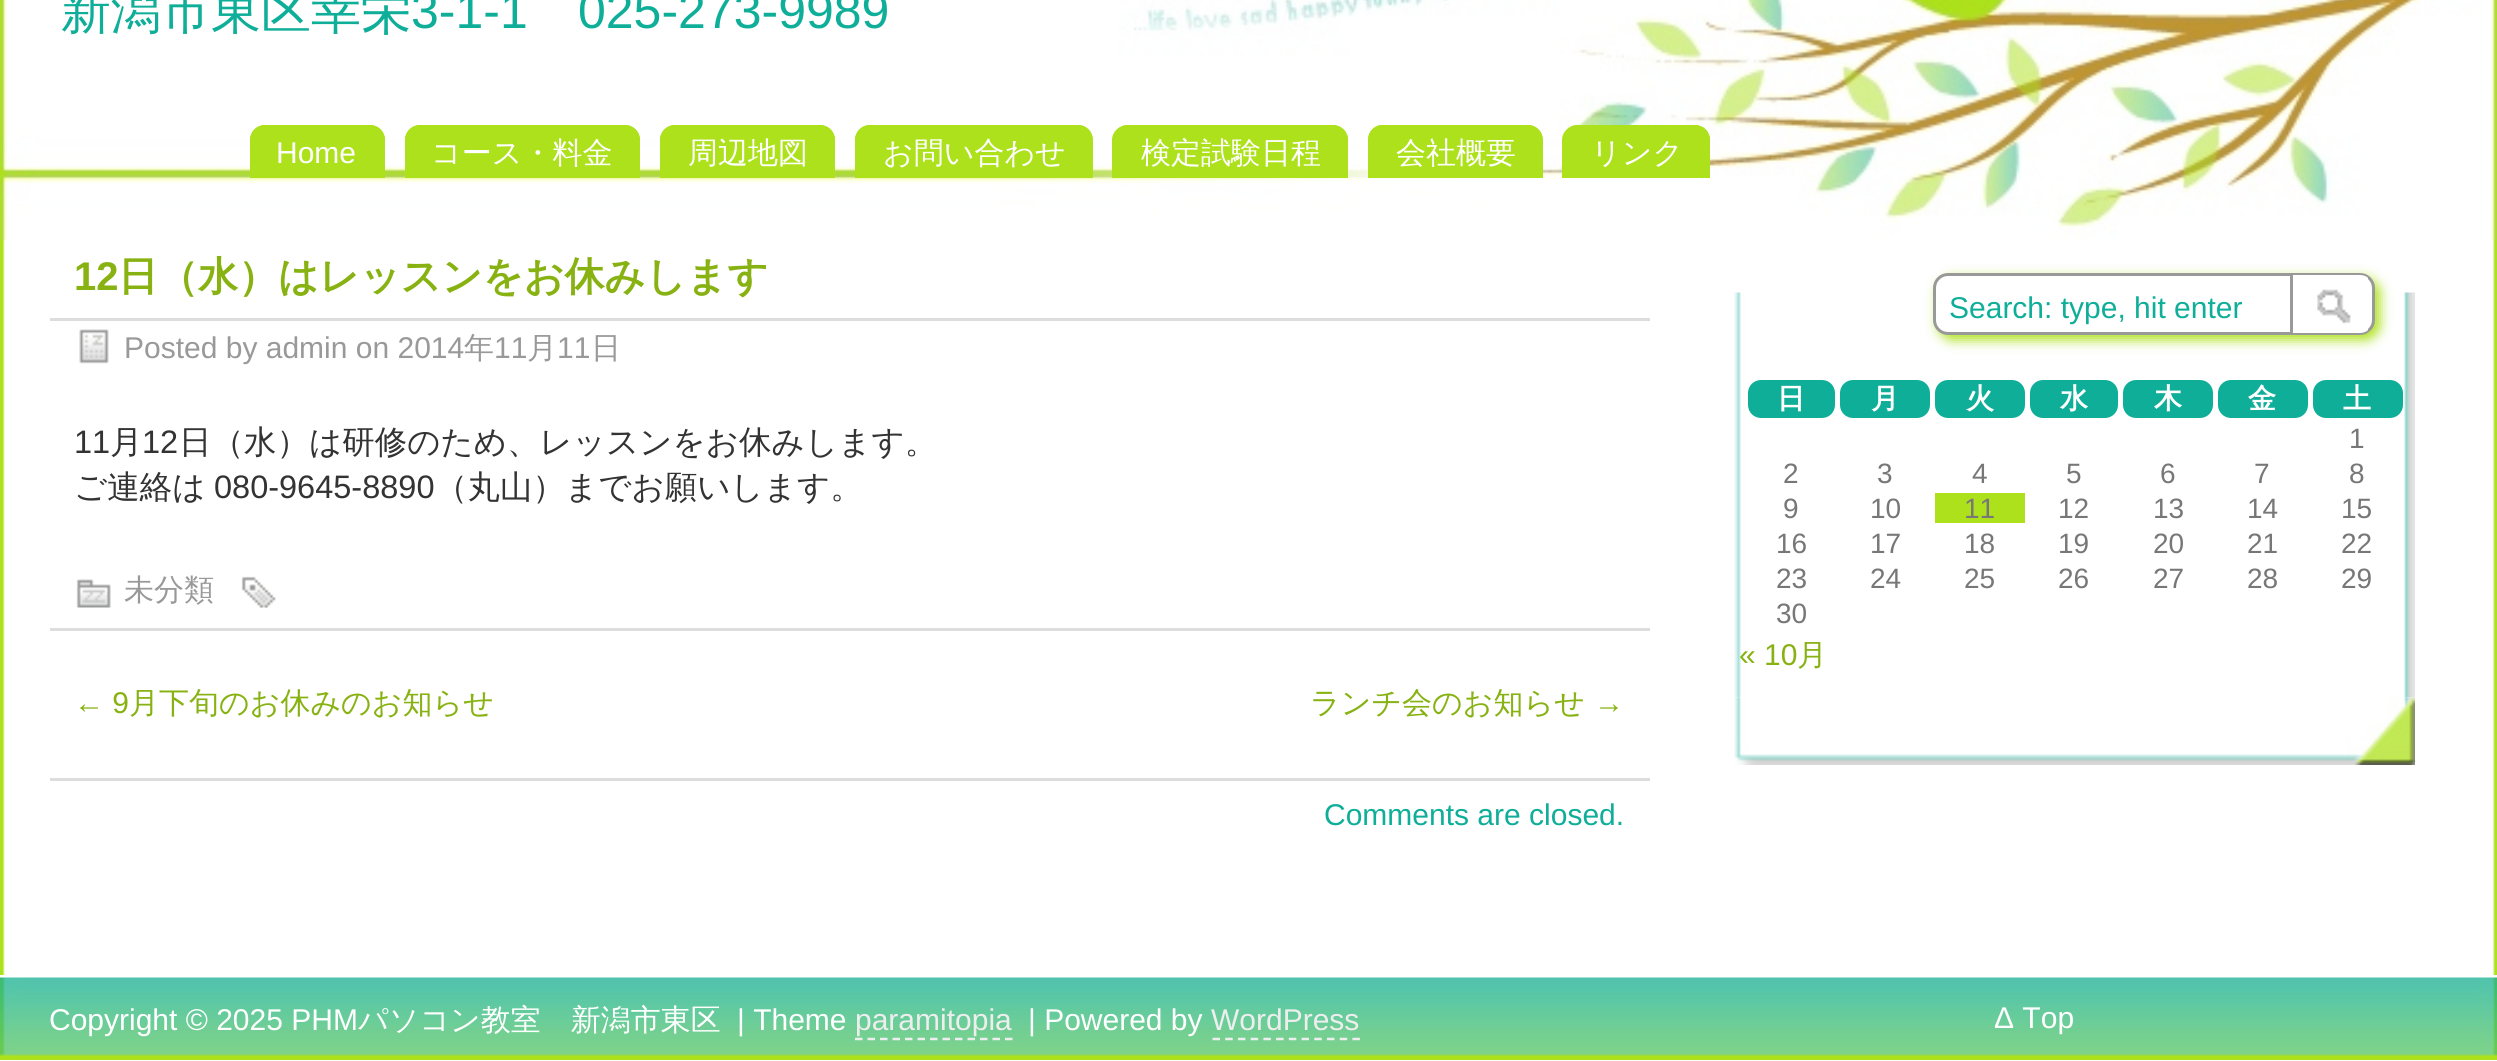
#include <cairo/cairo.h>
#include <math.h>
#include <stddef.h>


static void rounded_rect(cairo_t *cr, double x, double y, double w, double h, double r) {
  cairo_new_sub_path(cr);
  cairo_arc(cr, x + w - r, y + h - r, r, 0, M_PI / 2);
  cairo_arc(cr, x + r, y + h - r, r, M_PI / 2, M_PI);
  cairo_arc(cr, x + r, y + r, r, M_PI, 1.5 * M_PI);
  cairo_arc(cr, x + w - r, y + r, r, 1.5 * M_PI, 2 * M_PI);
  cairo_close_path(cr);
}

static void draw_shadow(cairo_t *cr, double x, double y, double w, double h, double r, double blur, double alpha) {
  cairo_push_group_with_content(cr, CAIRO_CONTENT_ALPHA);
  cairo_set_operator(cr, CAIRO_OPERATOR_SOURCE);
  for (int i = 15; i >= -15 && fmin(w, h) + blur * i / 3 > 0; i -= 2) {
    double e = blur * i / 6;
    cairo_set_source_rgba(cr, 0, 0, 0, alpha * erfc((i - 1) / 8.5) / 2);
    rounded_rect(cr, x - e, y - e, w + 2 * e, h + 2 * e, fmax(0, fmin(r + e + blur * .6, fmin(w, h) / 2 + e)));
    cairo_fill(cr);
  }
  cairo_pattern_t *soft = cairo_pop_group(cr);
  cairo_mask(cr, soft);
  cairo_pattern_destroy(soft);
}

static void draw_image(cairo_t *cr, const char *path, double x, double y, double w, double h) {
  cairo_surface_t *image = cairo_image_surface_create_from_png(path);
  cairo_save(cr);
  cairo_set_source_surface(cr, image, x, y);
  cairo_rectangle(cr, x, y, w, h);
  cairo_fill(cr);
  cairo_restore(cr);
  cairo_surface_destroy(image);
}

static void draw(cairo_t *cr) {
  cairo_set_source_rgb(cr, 1, 1, 1);
  cairo_paint(cr);
  draw_image(cr, "images/1.png", 0, 240, 2497, 735);
  draw_image(cr, "images/2.png", 0, 0, 2497, 240);
  cairo_set_source_rgb(cr, 172 / 255.0, 225 / 255.0, 27 / 255.0);
  cairo_new_path(cr);
  cairo_move_to(cr, 265, 125);
  cairo_line_to(cr, 370, 125);
  cairo_curve_to(cr, 378.5, 125, 385, 131.5, 385, 140);
  cairo_line_to(cr, 385, 178);
  cairo_line_to(cr, 250, 178);
  cairo_line_to(cr, 250, 140);
  cairo_curve_to(cr, 250, 131.5, 256.5, 125, 265, 125);
  cairo_close_path(cr);
  cairo_fill(cr);
  cairo_set_fill_rule(cr, CAIRO_FILL_RULE_EVEN_ODD);
  cairo_new_path(cr);
  cairo_move_to(cr, 265, 125);
  cairo_line_to(cr, 370, 125);
  cairo_curve_to(cr, 378, 125, 385, 132, 385, 140);
  cairo_line_to(cr, 385, 178);
  cairo_line_to(cr, 250, 178);
  cairo_line_to(cr, 250, 140);
  cairo_curve_to(cr, 250, 132, 257, 125, 265, 125);
  cairo_close_path(cr);
  cairo_move_to(cr, 265, 128);
  cairo_line_to(cr, 370, 128);
  cairo_curve_to(cr, 377, 128, 382, 133, 382, 140);
  cairo_line_to(cr, 382, 178);
  cairo_line_to(cr, 252, 178);
  cairo_line_to(cr, 252, 140);
  cairo_curve_to(cr, 252, 133, 258, 128, 265, 128);
  cairo_close_path(cr);
  cairo_fill(cr);
  cairo_new_path(cr);
  cairo_move_to(cr, 420, 125);
  cairo_line_to(cr, 625, 125);
  cairo_curve_to(cr, 633.5, 125, 640, 131.5, 640, 140);
  cairo_line_to(cr, 640, 178);
  cairo_line_to(cr, 405, 178);
  cairo_line_to(cr, 405, 140);
  cairo_curve_to(cr, 405, 131.5, 411.5, 125, 420, 125);
  cairo_close_path(cr);
  cairo_fill(cr);
  cairo_new_path(cr);
  cairo_move_to(cr, 420, 125);
  cairo_line_to(cr, 625, 125);
  cairo_curve_to(cr, 633, 125, 640, 132, 640, 140);
  cairo_line_to(cr, 640, 178);
  cairo_line_to(cr, 405, 178);
  cairo_line_to(cr, 405, 140);
  cairo_curve_to(cr, 405, 132, 412, 125, 420, 125);
  cairo_close_path(cr);
  cairo_move_to(cr, 420, 128);
  cairo_line_to(cr, 625, 128);
  cairo_curve_to(cr, 632, 128, 638, 133, 638, 140);
  cairo_line_to(cr, 638, 178);
  cairo_line_to(cr, 408, 178);
  cairo_line_to(cr, 408, 140);
  cairo_curve_to(cr, 408, 133, 413, 128, 420, 128);
  cairo_close_path(cr);
  cairo_fill(cr);
  cairo_new_path(cr);
  cairo_move_to(cr, 675, 125);
  cairo_line_to(cr, 820, 125);
  cairo_curve_to(cr, 828.5, 125, 835, 131.5, 835, 140);
  cairo_line_to(cr, 835, 178);
  cairo_line_to(cr, 660, 178);
  cairo_line_to(cr, 660, 140);
  cairo_curve_to(cr, 660, 131.5, 666.5, 125, 675, 125);
  cairo_close_path(cr);
  cairo_fill(cr);
  cairo_new_path(cr);
  cairo_move_to(cr, 675, 125);
  cairo_line_to(cr, 820, 125);
  cairo_curve_to(cr, 828, 125, 835, 132, 835, 140);
  cairo_line_to(cr, 835, 178);
  cairo_line_to(cr, 660, 178);
  cairo_line_to(cr, 660, 140);
  cairo_curve_to(cr, 660, 132, 667, 125, 675, 125);
  cairo_close_path(cr);
  cairo_move_to(cr, 675, 128);
  cairo_line_to(cr, 820, 128);
  cairo_curve_to(cr, 827, 128, 832, 133, 832, 140);
  cairo_line_to(cr, 832, 178);
  cairo_line_to(cr, 662, 178);
  cairo_line_to(cr, 662, 140);
  cairo_curve_to(cr, 662, 133, 668, 128, 675, 128);
  cairo_close_path(cr);
  cairo_fill(cr);
  cairo_new_path(cr);
  cairo_move_to(cr, 870, 125);
  cairo_line_to(cr, 1078, 125);
  cairo_curve_to(cr, 1086.5, 125, 1093, 131.5, 1093, 140);
  cairo_line_to(cr, 1093, 178);
  cairo_line_to(cr, 855, 178);
  cairo_line_to(cr, 855, 140);
  cairo_curve_to(cr, 855, 131.5, 861.5, 125, 870, 125);
  cairo_close_path(cr);
  cairo_fill(cr);
  cairo_new_path(cr);
  cairo_move_to(cr, 870, 125);
  cairo_line_to(cr, 1078, 125);
  cairo_curve_to(cr, 1086, 125, 1092, 132, 1092, 140);
  cairo_line_to(cr, 1092, 178);
  cairo_line_to(cr, 855, 178);
  cairo_line_to(cr, 855, 140);
  cairo_curve_to(cr, 855, 132, 862, 125, 870, 125);
  cairo_close_path(cr);
  cairo_move_to(cr, 870, 128);
  cairo_line_to(cr, 1078, 128);
  cairo_curve_to(cr, 1084, 128, 1090, 133, 1090, 140);
  cairo_line_to(cr, 1090, 178);
  cairo_line_to(cr, 858, 178);
  cairo_line_to(cr, 858, 140);
  cairo_curve_to(cr, 858, 133, 863, 128, 870, 128);
  cairo_close_path(cr);
  cairo_fill(cr);
  cairo_new_path(cr);
  cairo_move_to(cr, 1128, 125);
  cairo_line_to(cr, 1333, 125);
  cairo_curve_to(cr, 1341.5, 125, 1348, 131.5, 1348, 140);
  cairo_line_to(cr, 1348, 178);
  cairo_line_to(cr, 1113, 178);
  cairo_line_to(cr, 1113, 140);
  cairo_curve_to(cr, 1113, 131.5, 1119.5, 125, 1128, 125);
  cairo_close_path(cr);
  cairo_fill(cr);
  cairo_new_path(cr);
  cairo_move_to(cr, 1128, 125);
  cairo_line_to(cr, 1332, 125);
  cairo_curve_to(cr, 1341, 125, 1348, 132, 1348, 140);
  cairo_line_to(cr, 1348, 178);
  cairo_line_to(cr, 1112, 178);
  cairo_line_to(cr, 1112, 140);
  cairo_curve_to(cr, 1112, 132, 1119, 125, 1128, 125);
  cairo_close_path(cr);
  cairo_move_to(cr, 1128, 128);
  cairo_line_to(cr, 1332, 128);
  cairo_curve_to(cr, 1339, 128, 1345, 133, 1345, 140);
  cairo_line_to(cr, 1345, 178);
  cairo_line_to(cr, 1115, 178);
  cairo_line_to(cr, 1115, 140);
  cairo_curve_to(cr, 1115, 133, 1121, 128, 1128, 128);
  cairo_close_path(cr);
  cairo_fill(cr);
  cairo_new_path(cr);
  cairo_move_to(cr, 1383, 125);
  cairo_line_to(cr, 1528, 125);
  cairo_curve_to(cr, 1536.5, 125, 1543, 131.5, 1543, 140);
  cairo_line_to(cr, 1543, 178);
  cairo_line_to(cr, 1368, 178);
  cairo_line_to(cr, 1368, 140);
  cairo_curve_to(cr, 1368, 131.5, 1374.5, 125, 1383, 125);
  cairo_close_path(cr);
  cairo_fill(cr);
  cairo_new_path(cr);
  cairo_move_to(cr, 1382, 125);
  cairo_line_to(cr, 1528, 125);
  cairo_curve_to(cr, 1536, 125, 1542, 132, 1542, 140);
  cairo_line_to(cr, 1542, 178);
  cairo_line_to(cr, 1368, 178);
  cairo_line_to(cr, 1368, 140);
  cairo_curve_to(cr, 1368, 132, 1374, 125, 1382, 125);
  cairo_close_path(cr);
  cairo_move_to(cr, 1382, 128);
  cairo_line_to(cr, 1528, 128);
  cairo_curve_to(cr, 1534, 128, 1540, 133, 1540, 140);
  cairo_line_to(cr, 1540, 178);
  cairo_line_to(cr, 1370, 178);
  cairo_line_to(cr, 1370, 140);
  cairo_curve_to(cr, 1370, 133, 1376, 128, 1382, 128);
  cairo_close_path(cr);
  cairo_fill(cr);
  cairo_new_path(cr);
  cairo_move_to(cr, 1578, 125);
  cairo_line_to(cr, 1695, 125);
  cairo_curve_to(cr, 1703.5, 125, 1710, 131.5, 1710, 140);
  cairo_line_to(cr, 1710, 178);
  cairo_line_to(cr, 1563, 178);
  cairo_line_to(cr, 1563, 140);
  cairo_curve_to(cr, 1563, 131.5, 1569.5, 125, 1578, 125);
  cairo_close_path(cr);
  cairo_fill(cr);
  cairo_new_path(cr);
  cairo_move_to(cr, 1578, 125);
  cairo_line_to(cr, 1695, 125);
  cairo_curve_to(cr, 1703, 125, 1710, 132, 1710, 140);
  cairo_line_to(cr, 1710, 178);
  cairo_line_to(cr, 1562, 178);
  cairo_line_to(cr, 1562, 140);
  cairo_curve_to(cr, 1562, 132, 1569, 125, 1578, 125);
  cairo_close_path(cr);
  cairo_move_to(cr, 1578, 128);
  cairo_line_to(cr, 1695, 128);
  cairo_curve_to(cr, 1702, 128, 1708, 133, 1708, 140);
  cairo_line_to(cr, 1708, 178);
  cairo_line_to(cr, 1565, 178);
  cairo_line_to(cr, 1565, 140);
  cairo_curve_to(cr, 1565, 133, 1571, 128, 1578, 128);
  cairo_close_path(cr);
  cairo_fill(cr);
  draw_image(cr, "images/7.png", 1734, 292, 681, 406);
  cairo_set_source_rgb(cr, 172 / 255.0, 225 / 255.0, 27 / 255.0);
  draw_shadow(cr, 1938, 278, 442, 62, 15, 6, 1);
  cairo_set_source_rgb(cr, 1, 1, 1);
  rounded_rect(cr, 1934.5, 274.5, 439, 59, 13.5);
  cairo_fill_preserve(cr);
  cairo_set_source_rgb(cr, 153 / 255.0, 153 / 255.0, 153 / 255.0);
  cairo_set_line_width(cr, 3);
  cairo_stroke(cr);
  cairo_save(cr);
  cairo_set_fill_rule(cr, CAIRO_FILL_RULE_WINDING);
  rounded_rect(cr, 1935, 275, 438, 58, 13);
  cairo_clip(cr);
  cairo_set_source_rgb(cr, 1, 1, 1);
  cairo_rectangle(cr, 2293, 275, 75, 58);
  cairo_fill(cr);
  cairo_restore(cr);
  draw_image(cr, "images/3.png", 2317, 289, 34, 35);
  cairo_rectangle(cr, 2290, 275, 3, 58);
  cairo_fill(cr);
  cairo_set_source_rgb(cr, 221 / 255.0, 221 / 255.0, 221 / 255.0);
  cairo_rectangle(cr, 50, 318, 1600, 3);
  cairo_fill(cr);
  draw_image(cr, "images/4.png", 79, 329, 30, 35);
  draw_image(cr, "images/5.png", 76, 579, 35, 29);
  draw_image(cr, "images/6.png", 241, 576, 35, 32);
  cairo_rectangle(cr, 50, 628, 1600, 3);
  cairo_fill(cr);
  cairo_rectangle(cr, 50, 778, 1600, 3);
  cairo_fill(cr);
  cairo_set_source_rgb(cr, 14 / 255.0, 174 / 255.0, 153 / 255.0);
  rounded_rect(cr, 1748, 380, 87, 38, 13);
  cairo_fill(cr);
  rounded_rect(cr, 1840, 380, 90, 38, 13);
  cairo_fill(cr);
  rounded_rect(cr, 1935, 380, 90, 38, 13);
  cairo_fill(cr);
  rounded_rect(cr, 2030, 380, 88, 38, 13);
  cairo_fill(cr);
  rounded_rect(cr, 2123, 380, 90, 38, 13);
  cairo_fill(cr);
  rounded_rect(cr, 2218, 380, 90, 38, 13);
  cairo_fill(cr);
  rounded_rect(cr, 2313, 380, 90, 38, 13);
  cairo_fill(cr);
  cairo_set_source_rgb(cr, 172 / 255.0, 225 / 255.0, 27 / 255.0);
  cairo_rectangle(cr, 1935, 493, 90, 30);
  cairo_fill(cr);
  draw_image(cr, "images/8.png", 1734, 697, 681, 68);
  draw_image(cr, "images/9.png", 0, 977, 2497, 83);
  cairo_new_path(cr);
  cairo_move_to(cr, 855, 1039);
  cairo_line_to(cr, 1012.5, 1039);
  cairo_set_source_rgb(cr, 238 / 255.0, 238 / 255.0, 238 / 255.0);
  cairo_set_line_width(cr, 2.5);
  cairo_set_dash(cr, (double[]){7.5, 5}, 2, 0);
  cairo_stroke(cr);
  cairo_new_path(cr);
  cairo_move_to(cr, 1212.5, 1039);
  cairo_line_to(cr, 1360, 1039);
  cairo_set_dash(cr, (double[]){7.5, 5.22}, 2, 0);
  cairo_stroke(cr);
  cairo_select_font_face(cr, "WenQuanYi Zen Hei Medium", CAIRO_FONT_SLANT_NORMAL, CAIRO_FONT_WEIGHT_NORMAL);
  cairo_set_font_size(cr, 50);
  cairo_set_source_rgb(cr, 14 / 255.0, 174 / 255.0, 153 / 255.0);
  cairo_move_to(cr, 61, 28);
  cairo_show_text(cr, "新潟市東区幸栄");
  cairo_select_font_face(cr, "Liberation Sans", CAIRO_FONT_SLANT_NORMAL, CAIRO_FONT_WEIGHT_NORMAL);
  cairo_move_to(cr, 411, 28);
  cairo_show_text(cr, "3-1-1");
  cairo_move_to(cr, 578, 28);
  cairo_show_text(cr, "025-273-9989");
  cairo_set_font_size(cr, 30);
  cairo_set_source_rgb(cr, 1, 1, 1);
  cairo_move_to(cr, 276, 163);
  cairo_show_text(cr, "Home");
  cairo_select_font_face(cr, "WenQuanYi Zen Hei Medium", CAIRO_FONT_SLANT_NORMAL, CAIRO_FONT_WEIGHT_NORMAL);
  cairo_move_to(cr, 431, 163);
  cairo_show_text(cr, "コース・料金");
  cairo_move_to(cr, 688, 163);
  cairo_show_text(cr, "周辺地図");
  cairo_move_to(cr, 883, 163);
  cairo_show_text(cr, "お問い合わせ");
  cairo_move_to(cr, 1141, 163);
  cairo_show_text(cr, "検定試験日程");
  cairo_move_to(cr, 1396, 163);
  cairo_show_text(cr, "会社概要");
  cairo_move_to(cr, 1591, 163);
  cairo_show_text(cr, "リンク");
  cairo_select_font_face(cr, "Liberation Sans", CAIRO_FONT_SLANT_NORMAL, CAIRO_FONT_WEIGHT_NORMAL);
  cairo_set_source_rgb(cr, 14 / 255.0, 174 / 255.0, 153 / 255.0);
  cairo_move_to(cr, 1949, 318);
  cairo_show_text(cr, "Search: type, hit enter");
  cairo_select_font_face(cr, "Liberation Sans", CAIRO_FONT_SLANT_NORMAL, CAIRO_FONT_WEIGHT_BOLD);
  cairo_set_font_size(cr, 40);
  cairo_set_source_rgb(cr, 135 / 255.0, 178 / 255.0, 18 / 255.0);
  cairo_move_to(cr, 74, 290);
  cairo_show_text(cr, "12");
  cairo_select_font_face(cr, "WenQuanYi Zen Hei", CAIRO_FONT_SLANT_NORMAL, CAIRO_FONT_WEIGHT_BOLD);
  cairo_move_to(cr, 118, 290);
  cairo_show_text(cr, "日（水）はレッスンをお休みします");
  cairo_select_font_face(cr, "Liberation Sans", CAIRO_FONT_SLANT_NORMAL, CAIRO_FONT_WEIGHT_NORMAL);
  cairo_set_font_size(cr, 30);
  cairo_set_source_rgb(cr, 153 / 255.0, 153 / 255.0, 153 / 255.0);
  cairo_move_to(cr, 124, 358);
  cairo_show_text(cr, "Posted by admin on 2014");
  cairo_select_font_face(cr, "WenQuanYi Zen Hei Medium", CAIRO_FONT_SLANT_NORMAL, CAIRO_FONT_WEIGHT_NORMAL);
  cairo_move_to(cr, 464, 358);
  cairo_show_text(cr, "年");
  cairo_select_font_face(cr, "Liberation Sans", CAIRO_FONT_SLANT_NORMAL, CAIRO_FONT_WEIGHT_NORMAL);
  cairo_move_to(cr, 494, 358);
  cairo_show_text(cr, "11");
  cairo_select_font_face(cr, "WenQuanYi Zen Hei Medium", CAIRO_FONT_SLANT_NORMAL, CAIRO_FONT_WEIGHT_NORMAL);
  cairo_move_to(cr, 527, 358);
  cairo_show_text(cr, "月");
  cairo_select_font_face(cr, "Liberation Sans", CAIRO_FONT_SLANT_NORMAL, CAIRO_FONT_WEIGHT_NORMAL);
  cairo_move_to(cr, 557, 358);
  cairo_show_text(cr, "11");
  cairo_select_font_face(cr, "WenQuanYi Zen Hei Medium", CAIRO_FONT_SLANT_NORMAL, CAIRO_FONT_WEIGHT_NORMAL);
  cairo_move_to(cr, 591, 358);
  cairo_show_text(cr, "日");
  cairo_select_font_face(cr, "Liberation Sans", CAIRO_FONT_SLANT_NORMAL, CAIRO_FONT_WEIGHT_NORMAL);
  cairo_set_font_size(cr, 32.5);
  cairo_set_source_rgb(cr, 51 / 255.0, 51 / 255.0, 51 / 255.0);
  cairo_move_to(cr, 74, 453);
  cairo_show_text(cr, "11");
  cairo_select_font_face(cr, "WenQuanYi Zen Hei Medium", CAIRO_FONT_SLANT_NORMAL, CAIRO_FONT_WEIGHT_NORMAL);
  cairo_move_to(cr, 110, 453);
  cairo_show_text(cr, "月");
  cairo_select_font_face(cr, "Liberation Sans", CAIRO_FONT_SLANT_NORMAL, CAIRO_FONT_WEIGHT_NORMAL);
  cairo_move_to(cr, 142, 453);
  cairo_show_text(cr, "12");
  cairo_select_font_face(cr, "WenQuanYi Zen Hei Medium", CAIRO_FONT_SLANT_NORMAL, CAIRO_FONT_WEIGHT_NORMAL);
  cairo_move_to(cr, 179, 453);
  cairo_show_text(cr, "日（水）は研修のため、レッスンをお休みします。");
  cairo_move_to(cr, 74, 498);
  cairo_show_text(cr, "ご連絡は");
  cairo_select_font_face(cr, "Liberation Sans", CAIRO_FONT_SLANT_NORMAL, CAIRO_FONT_WEIGHT_NORMAL);
  cairo_move_to(cr, 214, 498);
  cairo_show_text(cr, "080-9645-8890");
  cairo_select_font_face(cr, "WenQuanYi Zen Hei Medium", CAIRO_FONT_SLANT_NORMAL, CAIRO_FONT_WEIGHT_NORMAL);
  cairo_move_to(cr, 435, 498);
  cairo_show_text(cr, "（丸山）までお願いします。");
  cairo_set_font_size(cr, 30);
  cairo_set_source_rgb(cr, 153 / 255.0, 153 / 255.0, 153 / 255.0);
  cairo_move_to(cr, 124, 600);
  cairo_show_text(cr, "未分類");
  cairo_select_font_face(cr, "Liberation Sans", CAIRO_FONT_SLANT_NORMAL, CAIRO_FONT_WEIGHT_NORMAL);
  cairo_set_source_rgb(cr, 135 / 255.0, 178 / 255.0, 18 / 255.0);
  cairo_move_to(cr, 74, 713);
  cairo_show_text(cr, "← 9");
  cairo_select_font_face(cr, "WenQuanYi Zen Hei Medium", CAIRO_FONT_SLANT_NORMAL, CAIRO_FONT_WEIGHT_NORMAL);
  cairo_move_to(cr, 129, 713);
  cairo_show_text(cr, "月下旬のお休みのお知らせ");
  cairo_move_to(cr, 1310, 713);
  cairo_show_text(cr, "ランチ会のお知らせ");
  cairo_select_font_face(cr, "Liberation Sans", CAIRO_FONT_SLANT_NORMAL, CAIRO_FONT_WEIGHT_NORMAL);
  cairo_move_to(cr, 1594, 713);
  cairo_show_text(cr, "→");
  cairo_set_source_rgb(cr, 14 / 255.0, 174 / 255.0, 153 / 255.0);
  cairo_move_to(cr, 1324, 825);
  cairo_show_text(cr, "Comments are closed.");
  cairo_select_font_face(cr, "WenQuanYi Zen Hei", CAIRO_FONT_SLANT_NORMAL, CAIRO_FONT_WEIGHT_BOLD);
  cairo_set_font_size(cr, 28);
  cairo_set_source_rgb(cr, 1, 1, 1);
  cairo_move_to(cr, 1777, 408);
  cairo_show_text(cr, "日");
  cairo_move_to(cr, 1871, 408);
  cairo_show_text(cr, "月");
  cairo_move_to(cr, 1966, 408);
  cairo_show_text(cr, "火");
  cairo_move_to(cr, 2060, 408);
  cairo_show_text(cr, "水");
  cairo_move_to(cr, 2154, 408);
  cairo_show_text(cr, "木");
  cairo_move_to(cr, 2248, 408);
  cairo_show_text(cr, "金");
  cairo_move_to(cr, 2343, 408);
  cairo_show_text(cr, "土");
  cairo_select_font_face(cr, "Liberation Sans", CAIRO_FONT_SLANT_NORMAL, CAIRO_FONT_WEIGHT_NORMAL);
  cairo_set_source_rgb(cr, 119 / 255.0, 119 / 255.0, 119 / 255.0);
  cairo_move_to(cr, 2349, 448);
  cairo_show_text(cr, "1");
  cairo_move_to(cr, 1783, 483);
  cairo_show_text(cr, "2");
  cairo_move_to(cr, 1877, 483);
  cairo_show_text(cr, "3");
  cairo_move_to(cr, 1972, 483);
  cairo_show_text(cr, "4");
  cairo_move_to(cr, 2066, 483);
  cairo_show_text(cr, "5");
  cairo_move_to(cr, 2160, 483);
  cairo_show_text(cr, "6");
  cairo_move_to(cr, 2254, 483);
  cairo_show_text(cr, "7");
  cairo_move_to(cr, 2349, 483);
  cairo_show_text(cr, "8");
  cairo_move_to(cr, 1783, 518);
  cairo_show_text(cr, "9");
  cairo_move_to(cr, 1870, 518);
  cairo_show_text(cr, "10");
  cairo_move_to(cr, 1964, 518);
  cairo_show_text(cr, "11");
  cairo_move_to(cr, 2058, 518);
  cairo_show_text(cr, "12");
  cairo_move_to(cr, 2153, 518);
  cairo_show_text(cr, "13");
  cairo_move_to(cr, 2247, 518);
  cairo_show_text(cr, "14");
  cairo_move_to(cr, 2341, 518);
  cairo_show_text(cr, "15");
  cairo_move_to(cr, 1776, 553);
  cairo_show_text(cr, "16");
  cairo_move_to(cr, 1870, 553);
  cairo_show_text(cr, "17");
  cairo_move_to(cr, 1964, 553);
  cairo_show_text(cr, "18");
  cairo_move_to(cr, 2058, 553);
  cairo_show_text(cr, "19");
  cairo_move_to(cr, 2153, 553);
  cairo_show_text(cr, "20");
  cairo_move_to(cr, 2247, 553);
  cairo_show_text(cr, "21");
  cairo_move_to(cr, 2341, 553);
  cairo_show_text(cr, "22");
  cairo_move_to(cr, 1776, 588);
  cairo_show_text(cr, "23");
  cairo_move_to(cr, 1870, 588);
  cairo_show_text(cr, "24");
  cairo_move_to(cr, 1964, 588);
  cairo_show_text(cr, "25");
  cairo_move_to(cr, 2058, 588);
  cairo_show_text(cr, "26");
  cairo_move_to(cr, 2153, 588);
  cairo_show_text(cr, "27");
  cairo_move_to(cr, 2247, 588);
  cairo_show_text(cr, "28");
  cairo_move_to(cr, 2341, 588);
  cairo_show_text(cr, "29");
  cairo_move_to(cr, 1776, 623);
  cairo_show_text(cr, "30");
  cairo_set_font_size(cr, 30);
  cairo_set_source_rgb(cr, 135 / 255.0, 178 / 255.0, 18 / 255.0);
  cairo_move_to(cr, 1739, 665);
  cairo_show_text(cr, "« 10");
  cairo_select_font_face(cr, "WenQuanYi Zen Hei Medium", CAIRO_FONT_SLANT_NORMAL, CAIRO_FONT_WEIGHT_NORMAL);
  cairo_move_to(cr, 1797, 665);
  cairo_show_text(cr, "月");
  cairo_select_font_face(cr, "Liberation Sans", CAIRO_FONT_SLANT_NORMAL, CAIRO_FONT_WEIGHT_NORMAL);
  cairo_set_source_rgb(cr, 1, 1, 1);
  cairo_move_to(cr, 49, 1030);
  cairo_show_text(cr, "Copyright © 2025 PHM");
  cairo_select_font_face(cr, "WenQuanYi Zen Hei Medium", CAIRO_FONT_SLANT_NORMAL, CAIRO_FONT_WEIGHT_NORMAL);
  cairo_move_to(cr, 358, 1030);
  cairo_show_text(cr, "パソコン教室　新潟市東区");
  cairo_select_font_face(cr, "Liberation Sans", CAIRO_FONT_SLANT_NORMAL, CAIRO_FONT_WEIGHT_NORMAL);
  cairo_move_to(cr, 737, 1030);
  cairo_show_text(cr, "| Theme");
  cairo_set_source_rgb(cr, 238 / 255.0, 238 / 255.0, 238 / 255.0);
  cairo_move_to(cr, 855, 1030);
  cairo_show_text(cr, "paramitopia");
  cairo_set_source_rgb(cr, 1, 1, 1);
  cairo_move_to(cr, 1028, 1030);
  cairo_show_text(cr, "| Powered by");
  cairo_set_source_rgb(cr, 238 / 255.0, 238 / 255.0, 238 / 255.0);
  cairo_move_to(cr, 1211, 1030);
  cairo_show_text(cr, "WordPress");
  cairo_set_source_rgb(cr, 1, 1, 1);
  cairo_move_to(cr, 1994, 1028);
  cairo_show_text(cr, "Δ Top");
}

int main(void) {
  cairo_surface_t *surface = cairo_image_surface_create(CAIRO_FORMAT_RGB24, 2497, 1061);
  cairo_t *cr = cairo_create(surface);
  cairo_font_options_t *options = cairo_font_options_create();
  cairo_font_options_set_hint_metrics(options, CAIRO_HINT_METRICS_OFF);
  cairo_font_options_set_hint_style(options, CAIRO_HINT_STYLE_NONE);
  cairo_set_font_options(cr, options);
  cairo_set_miter_limit(cr, 4);
  draw(cr);
  cairo_surface_write_to_png(surface, "out.png");
  cairo_font_options_destroy(options);
  cairo_destroy(cr);
  cairo_surface_destroy(surface);
  return 0;
}
